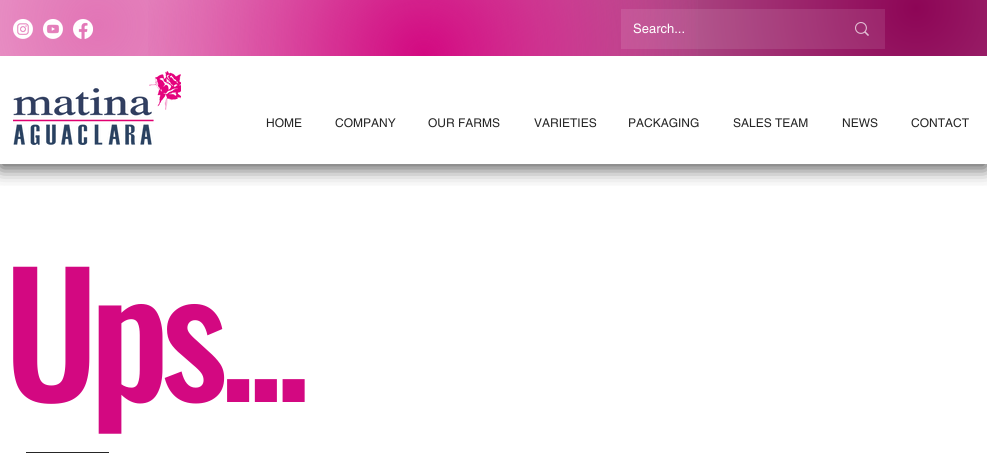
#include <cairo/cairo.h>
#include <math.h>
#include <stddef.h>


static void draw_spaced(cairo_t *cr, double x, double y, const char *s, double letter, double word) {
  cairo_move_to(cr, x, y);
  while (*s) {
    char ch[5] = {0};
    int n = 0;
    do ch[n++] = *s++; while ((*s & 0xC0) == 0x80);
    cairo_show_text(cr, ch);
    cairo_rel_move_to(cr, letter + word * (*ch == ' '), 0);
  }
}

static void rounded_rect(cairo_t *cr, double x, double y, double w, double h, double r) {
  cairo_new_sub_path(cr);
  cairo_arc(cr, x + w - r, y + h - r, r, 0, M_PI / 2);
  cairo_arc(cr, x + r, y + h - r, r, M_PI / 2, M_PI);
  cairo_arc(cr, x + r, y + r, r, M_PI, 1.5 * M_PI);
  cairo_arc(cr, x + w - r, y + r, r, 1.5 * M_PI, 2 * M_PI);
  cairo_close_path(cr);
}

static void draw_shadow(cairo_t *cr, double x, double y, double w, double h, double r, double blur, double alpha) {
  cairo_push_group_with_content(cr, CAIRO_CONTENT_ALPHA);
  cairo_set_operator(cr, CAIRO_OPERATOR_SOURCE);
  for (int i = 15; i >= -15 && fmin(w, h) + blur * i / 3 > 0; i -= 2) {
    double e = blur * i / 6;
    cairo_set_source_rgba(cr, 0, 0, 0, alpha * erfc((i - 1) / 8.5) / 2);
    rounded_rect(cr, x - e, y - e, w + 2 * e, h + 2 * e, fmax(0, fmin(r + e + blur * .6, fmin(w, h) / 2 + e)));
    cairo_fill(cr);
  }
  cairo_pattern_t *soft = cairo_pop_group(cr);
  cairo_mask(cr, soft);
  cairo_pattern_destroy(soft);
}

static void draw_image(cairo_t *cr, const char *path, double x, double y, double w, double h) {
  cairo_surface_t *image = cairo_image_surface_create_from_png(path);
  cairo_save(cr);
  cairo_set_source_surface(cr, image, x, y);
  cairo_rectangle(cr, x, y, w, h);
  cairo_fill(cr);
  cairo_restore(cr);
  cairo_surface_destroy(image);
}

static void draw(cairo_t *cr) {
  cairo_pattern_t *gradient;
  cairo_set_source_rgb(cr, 1, 1, 1);
  cairo_paint(cr);
  cairo_save(cr);
  cairo_rectangle(cr, 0, 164, 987, 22);
  cairo_clip(cr);
  cairo_set_source_rgb(cr, 0, 0, 0);
  draw_shadow(cr, 0, 4, 987, 164, 0, 9.5, 0.7);
  cairo_restore(cr);
  gradient = cairo_pattern_create_radial(916, 8, 0, 916, 8, 917);
  cairo_pattern_add_color_stop_rgba(gradient, 0, 141 / 255.0, 5 / 255.0, 86 / 255.0, 1);
  cairo_pattern_add_color_stop_rgba(gradient, 1, 1, 1, 1, 1);
  cairo_set_source(cr, gradient);
  cairo_pattern_destroy(gradient);
  cairo_rectangle(cr, 5, 0, 982, 56);
  cairo_fill(cr);
  gradient = cairo_pattern_create_radial(98, 25, 0, 98, 25, 889);
  cairo_pattern_add_color_stop_rgba(gradient, 0, 226 / 255.0, 117 / 255.0, 182 / 255.0, 1);
  cairo_pattern_add_color_stop_rgba(gradient, 0.7, 226 / 255.0, 117 / 255.0, 182 / 255.0, 0);
  cairo_set_source(cr, gradient);
  cairo_pattern_destroy(gradient);
  cairo_rectangle(cr, 0, 0, 698, 56);
  cairo_fill(cr);
  gradient = cairo_pattern_create_radial(424, 56, 0, 424, 56, 566);
  cairo_pattern_add_color_stop_rgba(gradient, 0, 211 / 255.0, 8 / 255.0, 129 / 255.0, 1);
  cairo_pattern_add_color_stop_rgba(gradient, 0.5, 211 / 255.0, 8 / 255.0, 129 / 255.0, 0);
  cairo_set_source(cr, gradient);
  cairo_pattern_destroy(gradient);
  cairo_rectangle(cr, 148, 0, 548, 56);
  cairo_fill(cr);
  draw_image(cr, "images/1.png", 13, 19, 20, 20);
  draw_image(cr, "images/2.png", 43, 19, 20, 20);
  draw_image(cr, "images/3.png", 73, 19, 20, 20);
  cairo_set_source_rgba(cr, 1, 1, 1, 0.1);
  cairo_rectangle(cr, 621, 9, 264, 40);
  cairo_fill(cr);
  draw_image(cr, "images/4.png", 855, 22, 14, 14);
  draw_image(cr, "images/5.png", 13, 71, 168, 74);
  cairo_set_source_rgb(cr, 38 / 255.0, 38 / 255.0, 38 / 255.0);
  cairo_rectangle(cr, 26, 452, 83, 1);
  cairo_fill(cr);
  cairo_select_font_face(cr, "helvetica", CAIRO_FONT_SLANT_NORMAL, CAIRO_FONT_WEIGHT_NORMAL);
  cairo_set_font_size(cr, 13);
  cairo_set_source_rgb(cr, 1, 1, 1);
  cairo_move_to(cr, 633, 33);
  cairo_show_text(cr, "Search...");
  cairo_set_font_size(cr, 12);
  cairo_set_source_rgb(cr, 38 / 255.0, 38 / 255.0, 38 / 255.0);
  cairo_move_to(cr, 266, 127);
  cairo_show_text(cr, "HOME");
  cairo_move_to(cr, 335, 127);
  cairo_show_text(cr, "COMPANY");
  cairo_move_to(cr, 428, 127);
  cairo_show_text(cr, "OUR FARMS");
  cairo_move_to(cr, 534, 127);
  cairo_show_text(cr, "VARIETIES");
  cairo_move_to(cr, 628, 127);
  cairo_show_text(cr, "PACKAGING");
  cairo_move_to(cr, 733, 127);
  cairo_show_text(cr, "SALES TEAM");
  cairo_move_to(cr, 842, 127);
  cairo_show_text(cr, "NEWS");
  cairo_move_to(cr, 911, 127);
  cairo_show_text(cr, "CONTACT");
  cairo_select_font_face(cr, "Oswald Medium", CAIRO_FONT_SLANT_NORMAL, CAIRO_FONT_WEIGHT_NORMAL);
  cairo_set_font_size(cr, 167);
  cairo_set_source_rgb(cr, 211 / 255.0, 8 / 255.0, 129 / 255.0);
  draw_spaced(cr, 4, 402, "Ups...", -8.5, 0);
}

int main(void) {
  cairo_surface_t *surface = cairo_image_surface_create(CAIRO_FORMAT_RGB24, 987, 460);
  cairo_t *cr = cairo_create(surface);
  cairo_font_options_t *options = cairo_font_options_create();
  cairo_font_options_set_hint_metrics(options, CAIRO_HINT_METRICS_OFF);
  cairo_font_options_set_hint_style(options, CAIRO_HINT_STYLE_NONE);
  cairo_set_font_options(cr, options);
  cairo_set_miter_limit(cr, 4);
  draw(cr);
  cairo_surface_write_to_png(surface, "out.png");
  cairo_font_options_destroy(options);
  cairo_destroy(cr);
  cairo_surface_destroy(surface);
  return 0;
}
